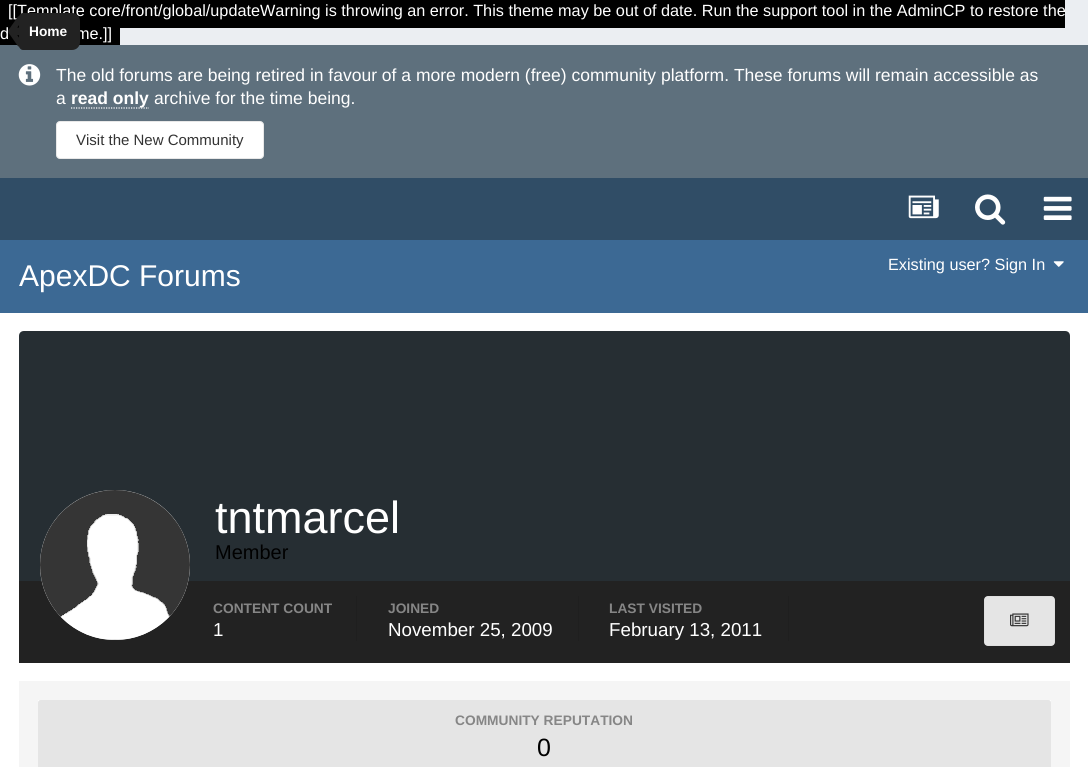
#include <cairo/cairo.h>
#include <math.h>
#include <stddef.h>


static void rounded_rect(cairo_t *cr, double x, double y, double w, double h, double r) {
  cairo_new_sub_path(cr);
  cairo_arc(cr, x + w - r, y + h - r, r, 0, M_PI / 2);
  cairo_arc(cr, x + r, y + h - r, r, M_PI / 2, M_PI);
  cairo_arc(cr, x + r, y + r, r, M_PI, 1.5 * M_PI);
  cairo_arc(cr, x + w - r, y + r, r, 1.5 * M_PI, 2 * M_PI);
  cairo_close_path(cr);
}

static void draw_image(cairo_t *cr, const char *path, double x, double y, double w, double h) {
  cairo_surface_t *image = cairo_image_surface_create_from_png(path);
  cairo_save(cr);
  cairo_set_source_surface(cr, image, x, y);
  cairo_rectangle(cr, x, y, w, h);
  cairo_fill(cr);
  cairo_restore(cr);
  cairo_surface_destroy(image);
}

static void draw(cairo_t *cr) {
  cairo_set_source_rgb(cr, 235 / 255.0, 238 / 255.0, 242 / 255.0);
  cairo_paint(cr);
  cairo_set_source_rgb(cr, 0, 0, 0);
  cairo_rectangle(cr, 0, 0, 1065, 28);
  cairo_fill(cr);
  cairo_set_source_rgb(cr, 48 / 255.0, 77 / 255.0, 102 / 255.0);
  cairo_rectangle(cr, 0, 178, 1088, 62);
  cairo_fill(cr);
  draw_image(cr, "images/2.png", 908, 195, 31, 24);
  draw_image(cr, "images/3.png", 975, 194, 31, 31);
  draw_image(cr, "images/4.png", 1043, 196, 29, 24);
  cairo_set_source_rgb(cr, 0, 0, 0);
  cairo_rectangle(cr, 0, 28, 120, 17);
  cairo_fill(cr);
  cairo_set_source_rgb(cr, 94 / 255.0, 112 / 255.0, 125 / 255.0);
  cairo_rectangle(cr, 0, 45, 1088, 133);
  cairo_fill(cr);
  draw_image(cr, "images/5.png", 18, 64, 23, 22);
  cairo_new_path(cr);
  cairo_move_to(cr, 71, 108);
  cairo_line_to(cr, 149, 108);
  cairo_set_source_rgb(cr, 1, 1, 1);
  cairo_set_line_width(cr, 1.2);
  cairo_set_dash(cr, (double[]){1.25, 1.25}, 2, 0);
  cairo_stroke(cr);
  rounded_rect(cr, 56.5, 121.5, 207, 37, 3.5);
  cairo_fill_preserve(cr);
  cairo_set_source_rgb(cr, 232 / 255.0, 232 / 255.0, 232 / 255.0);
  cairo_set_line_width(cr, 1);
  cairo_set_dash(cr, NULL, 0, 0);
  cairo_stroke(cr);
  cairo_set_source_rgb(cr, 60 / 255.0, 105 / 255.0, 148 / 255.0);
  cairo_rectangle(cr, 0, 240, 1088, 73);
  cairo_fill(cr);
  draw_image(cr, "images/6.png", 1053, 261, 11, 6);
  cairo_set_source_rgb(cr, 1, 1, 1);
  cairo_rectangle(cr, 0, 313, 1088, 454);
  cairo_fill(cr);
  cairo_set_source_rgb(cr, 38 / 255.0, 46 / 255.0, 51 / 255.0);
  cairo_new_path(cr);
  cairo_move_to(cr, 24, 331);
  cairo_line_to(cr, 1065, 331);
  cairo_curve_to(cr, 1068, 331, 1070, 333, 1070, 336);
  cairo_line_to(cr, 1070, 581);
  cairo_line_to(cr, 19, 581);
  cairo_line_to(cr, 19, 336);
  cairo_curve_to(cr, 19, 333, 21, 331, 24, 331);
  cairo_close_path(cr);
  cairo_fill(cr);
  cairo_set_source_rgb(cr, 34 / 255.0, 34 / 255.0, 34 / 255.0);
  cairo_rectangle(cr, 19, 581, 1051, 82);
  cairo_fill(cr);
  cairo_set_source_rgb(cr, 1, 1, 1);
  cairo_arc(cr, 115, 565, 75, 0, 2 * M_PI);
  cairo_fill(cr);
  draw_image(cr, "images/7.png", 40, 490, 150, 150);
  cairo_set_source_rgb(cr, 31 / 255.0, 31 / 255.0, 31 / 255.0);
  cairo_rectangle(cr, 356, 596, 1, 45);
  cairo_fill(cr);
  cairo_rectangle(cr, 578, 596, 1, 45);
  cairo_fill(cr);
  cairo_rectangle(cr, 788, 596, 1, 45);
  cairo_fill(cr);
  cairo_set_source_rgb(cr, 229 / 255.0, 229 / 255.0, 229 / 255.0);
  rounded_rect(cr, 984, 596, 71, 50, 4);
  cairo_fill(cr);
  cairo_rectangle(cr, 984.5, 596.5, 70, 49);
  cairo_set_source_rgba(cr, 0, 0, 0, 0.03);
  cairo_stroke(cr);
  draw_image(cr, "images/8.png", 1010, 613, 19, 14);
  cairo_set_source_rgb(cr, 245 / 255.0, 245 / 255.0, 245 / 255.0);
  cairo_rectangle(cr, 19, 681, 1051, 86);
  cairo_fill(cr);
  cairo_set_source_rgb(cr, 1, 1, 1);
  cairo_rectangle(cr, 38, 700, 1013, 3);
  cairo_fill(cr);
  cairo_set_source_rgb(cr, 229 / 255.0, 229 / 255.0, 229 / 255.0);
  rounded_rect(cr, 38, 700, 1013, 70, 2.5);
  cairo_fill(cr);
  cairo_select_font_face(cr, "Liberation Sans", CAIRO_FONT_SLANT_NORMAL, CAIRO_FONT_WEIGHT_NORMAL);
  cairo_set_font_size(cr, 16.25);
  cairo_set_source_rgb(cr, 1, 1, 1);
  cairo_move_to(cr, 8, 16);
  cairo_show_text(cr, "[[Template core/front/global/updateWarning is throwing an error. This theme may be out of date. Run the support tool in the AdminCP to restore the");
  cairo_move_to(cr, 0, 39);
  cairo_show_text(cr, "d");
  draw_image(cr, "images/1.png", 8, 16, 11, 31);
  cairo_move_to(cr, 76, 39);
  cairo_show_text(cr, "me.]]");
  cairo_set_source_rgb(cr, 34 / 255.0, 34 / 255.0, 34 / 255.0);
  cairo_new_path(cr);
  cairo_move_to(cr, 23, 13);
  cairo_line_to(cr, 72, 13);
  cairo_curve_to(cr, 76.5, 13, 80, 16.5, 80, 21);
  cairo_line_to(cr, 80, 42);
  cairo_curve_to(cr, 80, 46.5, 76.5, 50, 72, 50);
  cairo_line_to(cr, 23, 50);
  cairo_curve_to(cr, 21, 50, 19, 48, 19, 46);
  cairo_line_to(cr, 19, 17);
  cairo_curve_to(cr, 19, 15, 21, 13, 23, 13);
  cairo_close_path(cr);
  cairo_fill(cr);
  cairo_select_font_face(cr, "Liberation Sans", CAIRO_FONT_SLANT_NORMAL, CAIRO_FONT_WEIGHT_BOLD);
  cairo_set_font_size(cr, 13.75);
  cairo_set_source_rgb(cr, 1, 1, 1);
  cairo_move_to(cr, 29, 36);
  cairo_show_text(cr, "Home");
  cairo_select_font_face(cr, "Liberation Sans", CAIRO_FONT_SLANT_NORMAL, CAIRO_FONT_WEIGHT_NORMAL);
  cairo_set_font_size(cr, 17.5);
  cairo_move_to(cr, 56, 81);
  cairo_show_text(cr, "The old forums are being retired in favour of a more modern (free) community platform. These forums will remain accessible as");
  cairo_move_to(cr, 56, 104);
  cairo_show_text(cr, "a");
  cairo_select_font_face(cr, "Liberation Sans", CAIRO_FONT_SLANT_NORMAL, CAIRO_FONT_WEIGHT_BOLD);
  cairo_move_to(cr, 71, 104);
  cairo_show_text(cr, "read only");
  cairo_select_font_face(cr, "Liberation Sans", CAIRO_FONT_SLANT_NORMAL, CAIRO_FONT_WEIGHT_NORMAL);
  cairo_move_to(cr, 154, 104);
  cairo_show_text(cr, "archive for the time being.");
  cairo_set_font_size(cr, 15);
  cairo_set_source_rgb(cr, 51 / 255.0, 51 / 255.0, 51 / 255.0);
  cairo_move_to(cr, 76, 145);
  cairo_show_text(cr, "Visit the New Community");
  cairo_set_font_size(cr, 30);
  cairo_set_source_rgb(cr, 1, 1, 1);
  cairo_move_to(cr, 19, 286);
  cairo_show_text(cr, "ApexDC Forums");
  cairo_set_font_size(cr, 16.25);
  cairo_move_to(cr, 888, 270);
  cairo_show_text(cr, "Existing user? Sign In");
  cairo_set_font_size(cr, 45);
  cairo_move_to(cr, 215, 533);
  cairo_show_text(cr, "tntmarcel");
  cairo_set_font_size(cr, 20);
  cairo_set_source_rgb(cr, 0, 0, 0);
  cairo_move_to(cr, 215, 559);
  cairo_show_text(cr, "Member");
  cairo_select_font_face(cr, "Liberation Sans", CAIRO_FONT_SLANT_NORMAL, CAIRO_FONT_WEIGHT_BOLD);
  cairo_set_font_size(cr, 13.75);
  cairo_set_source_rgb(cr, 134 / 255.0, 134 / 255.0, 134 / 255.0);
  cairo_move_to(cr, 213, 613);
  cairo_show_text(cr, "CONTENT COUNT");
  cairo_select_font_face(cr, "Liberation Sans", CAIRO_FONT_SLANT_NORMAL, CAIRO_FONT_WEIGHT_NORMAL);
  cairo_set_font_size(cr, 18.75);
  cairo_set_source_rgb(cr, 1, 1, 1);
  cairo_move_to(cr, 213, 636);
  cairo_show_text(cr, "1");
  cairo_select_font_face(cr, "Liberation Sans", CAIRO_FONT_SLANT_NORMAL, CAIRO_FONT_WEIGHT_BOLD);
  cairo_set_font_size(cr, 13.75);
  cairo_set_source_rgb(cr, 134 / 255.0, 134 / 255.0, 134 / 255.0);
  cairo_move_to(cr, 388, 613);
  cairo_show_text(cr, "JOINED");
  cairo_select_font_face(cr, "Liberation Sans", CAIRO_FONT_SLANT_NORMAL, CAIRO_FONT_WEIGHT_NORMAL);
  cairo_set_font_size(cr, 18.75);
  cairo_set_source_rgb(cr, 1, 1, 1);
  cairo_move_to(cr, 388, 636);
  cairo_show_text(cr, "November 25, 2009");
  cairo_select_font_face(cr, "Liberation Sans", CAIRO_FONT_SLANT_NORMAL, CAIRO_FONT_WEIGHT_BOLD);
  cairo_set_font_size(cr, 13.75);
  cairo_set_source_rgb(cr, 134 / 255.0, 134 / 255.0, 134 / 255.0);
  cairo_move_to(cr, 609, 613);
  cairo_show_text(cr, "LAST VISITED");
  cairo_select_font_face(cr, "Liberation Sans", CAIRO_FONT_SLANT_NORMAL, CAIRO_FONT_WEIGHT_NORMAL);
  cairo_set_font_size(cr, 18.75);
  cairo_set_source_rgb(cr, 1, 1, 1);
  cairo_move_to(cr, 609, 636);
  cairo_show_text(cr, "February 13, 2011");
  cairo_select_font_face(cr, "Liberation Sans", CAIRO_FONT_SLANT_NORMAL, CAIRO_FONT_WEIGHT_BOLD);
  cairo_set_font_size(cr, 13.75);
  cairo_set_source_rgb(cr, 134 / 255.0, 134 / 255.0, 134 / 255.0);
  cairo_move_to(cr, 455, 725);
  cairo_show_text(cr, "COMMUNITY REPUTATION");
  cairo_select_font_face(cr, "Liberation Sans", CAIRO_FONT_SLANT_NORMAL, CAIRO_FONT_WEIGHT_NORMAL);
  cairo_set_font_size(cr, 25);
  cairo_set_source_rgb(cr, 0, 0, 0);
  cairo_move_to(cr, 537, 756);
  cairo_show_text(cr, "0");
}

int main(void) {
  cairo_surface_t *surface = cairo_image_surface_create(CAIRO_FORMAT_RGB24, 1088, 767);
  cairo_t *cr = cairo_create(surface);
  cairo_font_options_t *options = cairo_font_options_create();
  cairo_font_options_set_hint_metrics(options, CAIRO_HINT_METRICS_OFF);
  cairo_font_options_set_hint_style(options, CAIRO_HINT_STYLE_NONE);
  cairo_set_font_options(cr, options);
  cairo_set_miter_limit(cr, 4);
  draw(cr);
  cairo_surface_write_to_png(surface, "out.png");
  cairo_font_options_destroy(options);
  cairo_destroy(cr);
  cairo_surface_destroy(surface);
  return 0;
}
